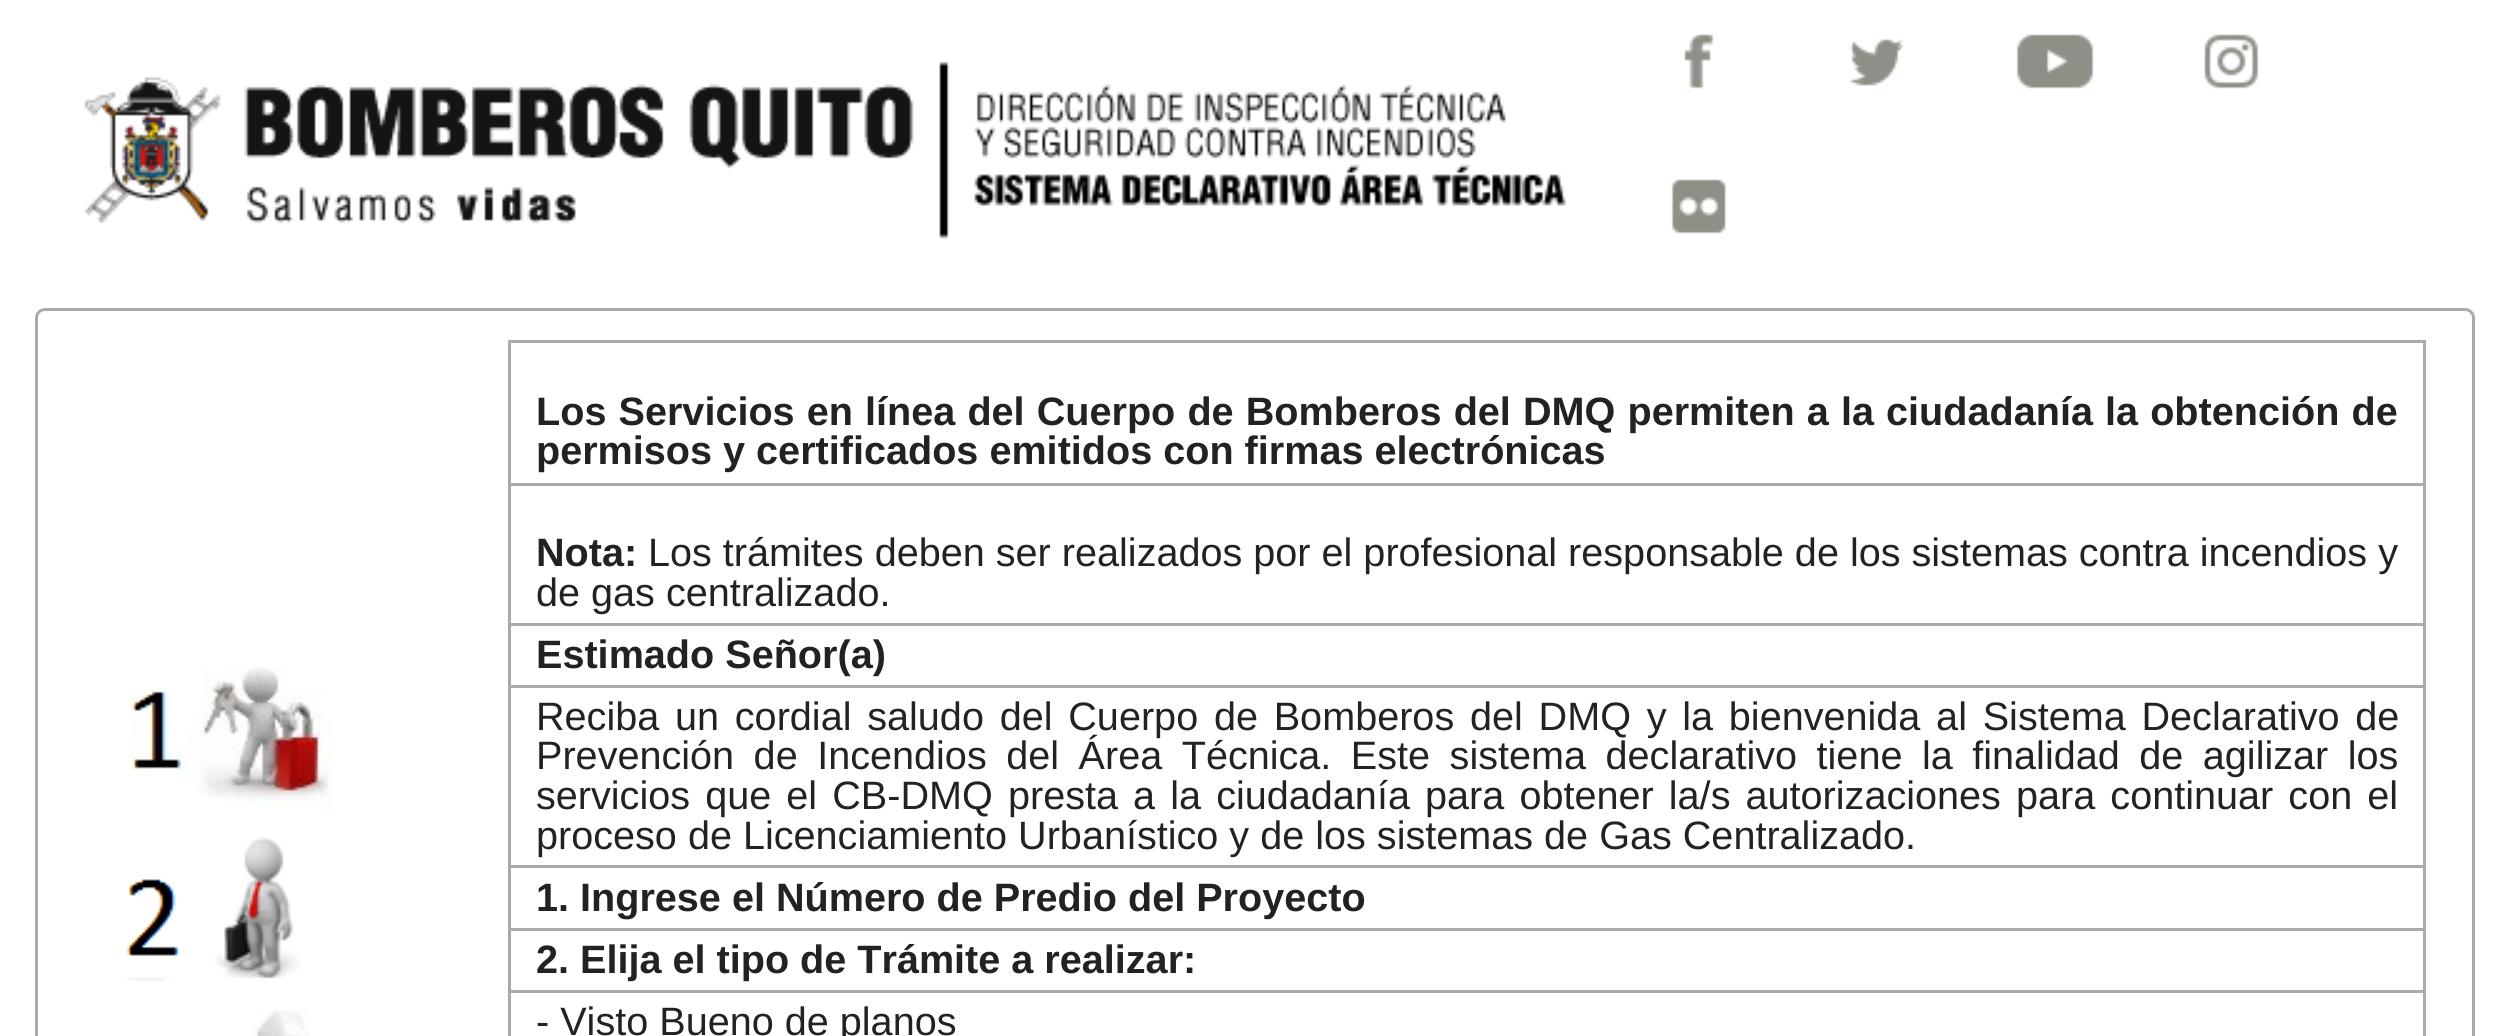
#include <cairo/cairo.h>
#include <math.h>
#include <stddef.h>


static void draw_spaced(cairo_t *cr, double x, double y, const char *s, double letter, double word) {
  cairo_move_to(cr, x, y);
  while (*s) {
    char ch[5] = {0};
    int n = 0;
    do ch[n++] = *s++; while ((*s & 0xC0) == 0x80);
    cairo_show_text(cr, ch);
    cairo_rel_move_to(cr, letter + word * (*ch == ' '), 0);
  }
}

static void rounded_rect(cairo_t *cr, double x, double y, double w, double h, double r) {
  cairo_new_sub_path(cr);
  cairo_arc(cr, x + w - r, y + h - r, r, 0, M_PI / 2);
  cairo_arc(cr, x + r, y + h - r, r, M_PI / 2, M_PI);
  cairo_arc(cr, x + r, y + r, r, M_PI, 1.5 * M_PI);
  cairo_arc(cr, x + w - r, y + r, r, 1.5 * M_PI, 2 * M_PI);
  cairo_close_path(cr);
}

static void draw_image(cairo_t *cr, const char *path, double x, double y, double w, double h) {
  cairo_surface_t *image = cairo_image_surface_create_from_png(path);
  cairo_save(cr);
  cairo_set_source_surface(cr, image, x, y);
  cairo_rectangle(cr, x, y, w, h);
  cairo_fill(cr);
  cairo_restore(cr);
  cairo_surface_destroy(image);
}

static void draw(cairo_t *cr) {
  cairo_set_source_rgb(cr, 1, 1, 1);
  cairo_paint(cr);
  draw_image(cr, "images/1.png", 84, 61, 1482, 178);
  draw_image(cr, "images/2.png", 1684, 34, 30, 55);
  draw_image(cr, "images/3.png", 1849, 39, 55, 47);
  draw_image(cr, "images/4.png", 2016, 34, 78, 55);
  draw_image(cr, "images/5.png", 2204, 34, 55, 55);
  draw_image(cr, "images/6.png", 1671, 179, 55, 55);
  rounded_rect(cr, 36.5, 309.5, 2437, 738, 8.5);
  cairo_set_source_rgb(cr, 170 / 255.0, 170 / 255.0, 170 / 255.0);
  cairo_set_line_width(cr, 3);
  cairo_stroke(cr);
  draw_image(cr, "images/7.png", 130, 667, 203, 142);
  draw_image(cr, "images/8.png", 126, 837, 175, 145);
  draw_image(cr, "images/9.png", 251, 1010, 58, 26);
  cairo_rectangle(cr, 508, 340, 1917, 3);
  cairo_fill(cr);
  cairo_rectangle(cr, 2423, 340, 3, 696);
  cairo_fill(cr);
  cairo_rectangle(cr, 508, 340, 3, 696);
  cairo_fill(cr);
  cairo_rectangle(cr, 508, 483, 1917, 3);
  cairo_fill(cr);
  cairo_rectangle(cr, 508, 623, 1917, 3);
  cairo_fill(cr);
  cairo_rectangle(cr, 508, 685, 1917, 3);
  cairo_fill(cr);
  cairo_rectangle(cr, 508, 865, 1917, 3);
  cairo_fill(cr);
  cairo_rectangle(cr, 508, 928, 1917, 3);
  cairo_fill(cr);
  cairo_rectangle(cr, 508, 990, 1917, 3);
  cairo_fill(cr);
  cairo_select_font_face(cr, "Liberation Sans", CAIRO_FONT_SLANT_NORMAL, CAIRO_FONT_WEIGHT_BOLD);
  cairo_set_font_size(cr, 39.6);
  cairo_set_source_rgb(cr, 34 / 255.0, 34 / 255.0, 34 / 255.0);
  draw_spaced(cr, 536, 425, "Los Servicios en línea del Cuerpo de Bomberos del DMQ permiten a la ciudadanía la obtención de", 0, 1.1);
  cairo_move_to(cr, 536, 464);
  cairo_show_text(cr, "permisos y certificados emitidos con firmas electrónicas");
  cairo_move_to(cr, 536, 566);
  cairo_show_text(cr, "Nota:");
  cairo_select_font_face(cr, "Liberation Sans", CAIRO_FONT_SLANT_NORMAL, CAIRO_FONT_WEIGHT_NORMAL);
  cairo_move_to(cr, 648, 566);
  cairo_show_text(cr, "Los trámites deben ser realizados por el profesional responsable de los sistemas contra incendios y");
  cairo_move_to(cr, 536, 606);
  cairo_show_text(cr, "de gas centralizado.");
  cairo_select_font_face(cr, "Liberation Sans", CAIRO_FONT_SLANT_NORMAL, CAIRO_FONT_WEIGHT_BOLD);
  cairo_move_to(cr, 536, 668);
  cairo_show_text(cr, "Estimado Señor(a)");
  cairo_select_font_face(cr, "Liberation Sans", CAIRO_FONT_SLANT_NORMAL, CAIRO_FONT_WEIGHT_NORMAL);
  draw_spaced(cr, 536, 730, "Reciba un cordial saludo del Cuerpo de Bomberos del DMQ y la bienvenida al Sistema Declarativo de", 0, 4.75);
  draw_spaced(cr, 536, 769, "Prevención de Incendios del Área Técnica. Este sistema declarativo tiene la finalidad de agilizar los", 0, 8.5);
  draw_spaced(cr, 536, 809, "servicios que el CB-DMQ presta a la ciudadanía para obtener la/s autorizaciones para continuar con el", 0, 4.1);
  cairo_move_to(cr, 536, 849);
  cairo_show_text(cr, "proceso de Licenciamiento Urbanístico y de los sistemas de Gas Centralizado.");
  cairo_select_font_face(cr, "Liberation Sans", CAIRO_FONT_SLANT_NORMAL, CAIRO_FONT_WEIGHT_BOLD);
  cairo_move_to(cr, 536, 911);
  cairo_show_text(cr, "1. Ingrese el Número de Predio del Proyecto");
  cairo_move_to(cr, 536, 973);
  cairo_show_text(cr, "2. Elija el tipo de Trámite a realizar:");
  cairo_select_font_face(cr, "Liberation Sans", CAIRO_FONT_SLANT_NORMAL, CAIRO_FONT_WEIGHT_NORMAL);
  cairo_move_to(cr, 536, 1035);
  cairo_show_text(cr, "- Visto Bueno de planos");
}

int main(void) {
  cairo_surface_t *surface = cairo_image_surface_create(CAIRO_FORMAT_RGB24, 2509, 1036);
  cairo_t *cr = cairo_create(surface);
  cairo_font_options_t *options = cairo_font_options_create();
  cairo_font_options_set_hint_metrics(options, CAIRO_HINT_METRICS_OFF);
  cairo_font_options_set_hint_style(options, CAIRO_HINT_STYLE_NONE);
  cairo_set_font_options(cr, options);
  cairo_set_miter_limit(cr, 4);
  draw(cr);
  cairo_surface_write_to_png(surface, "out.png");
  cairo_font_options_destroy(options);
  cairo_destroy(cr);
  cairo_surface_destroy(surface);
  return 0;
}
